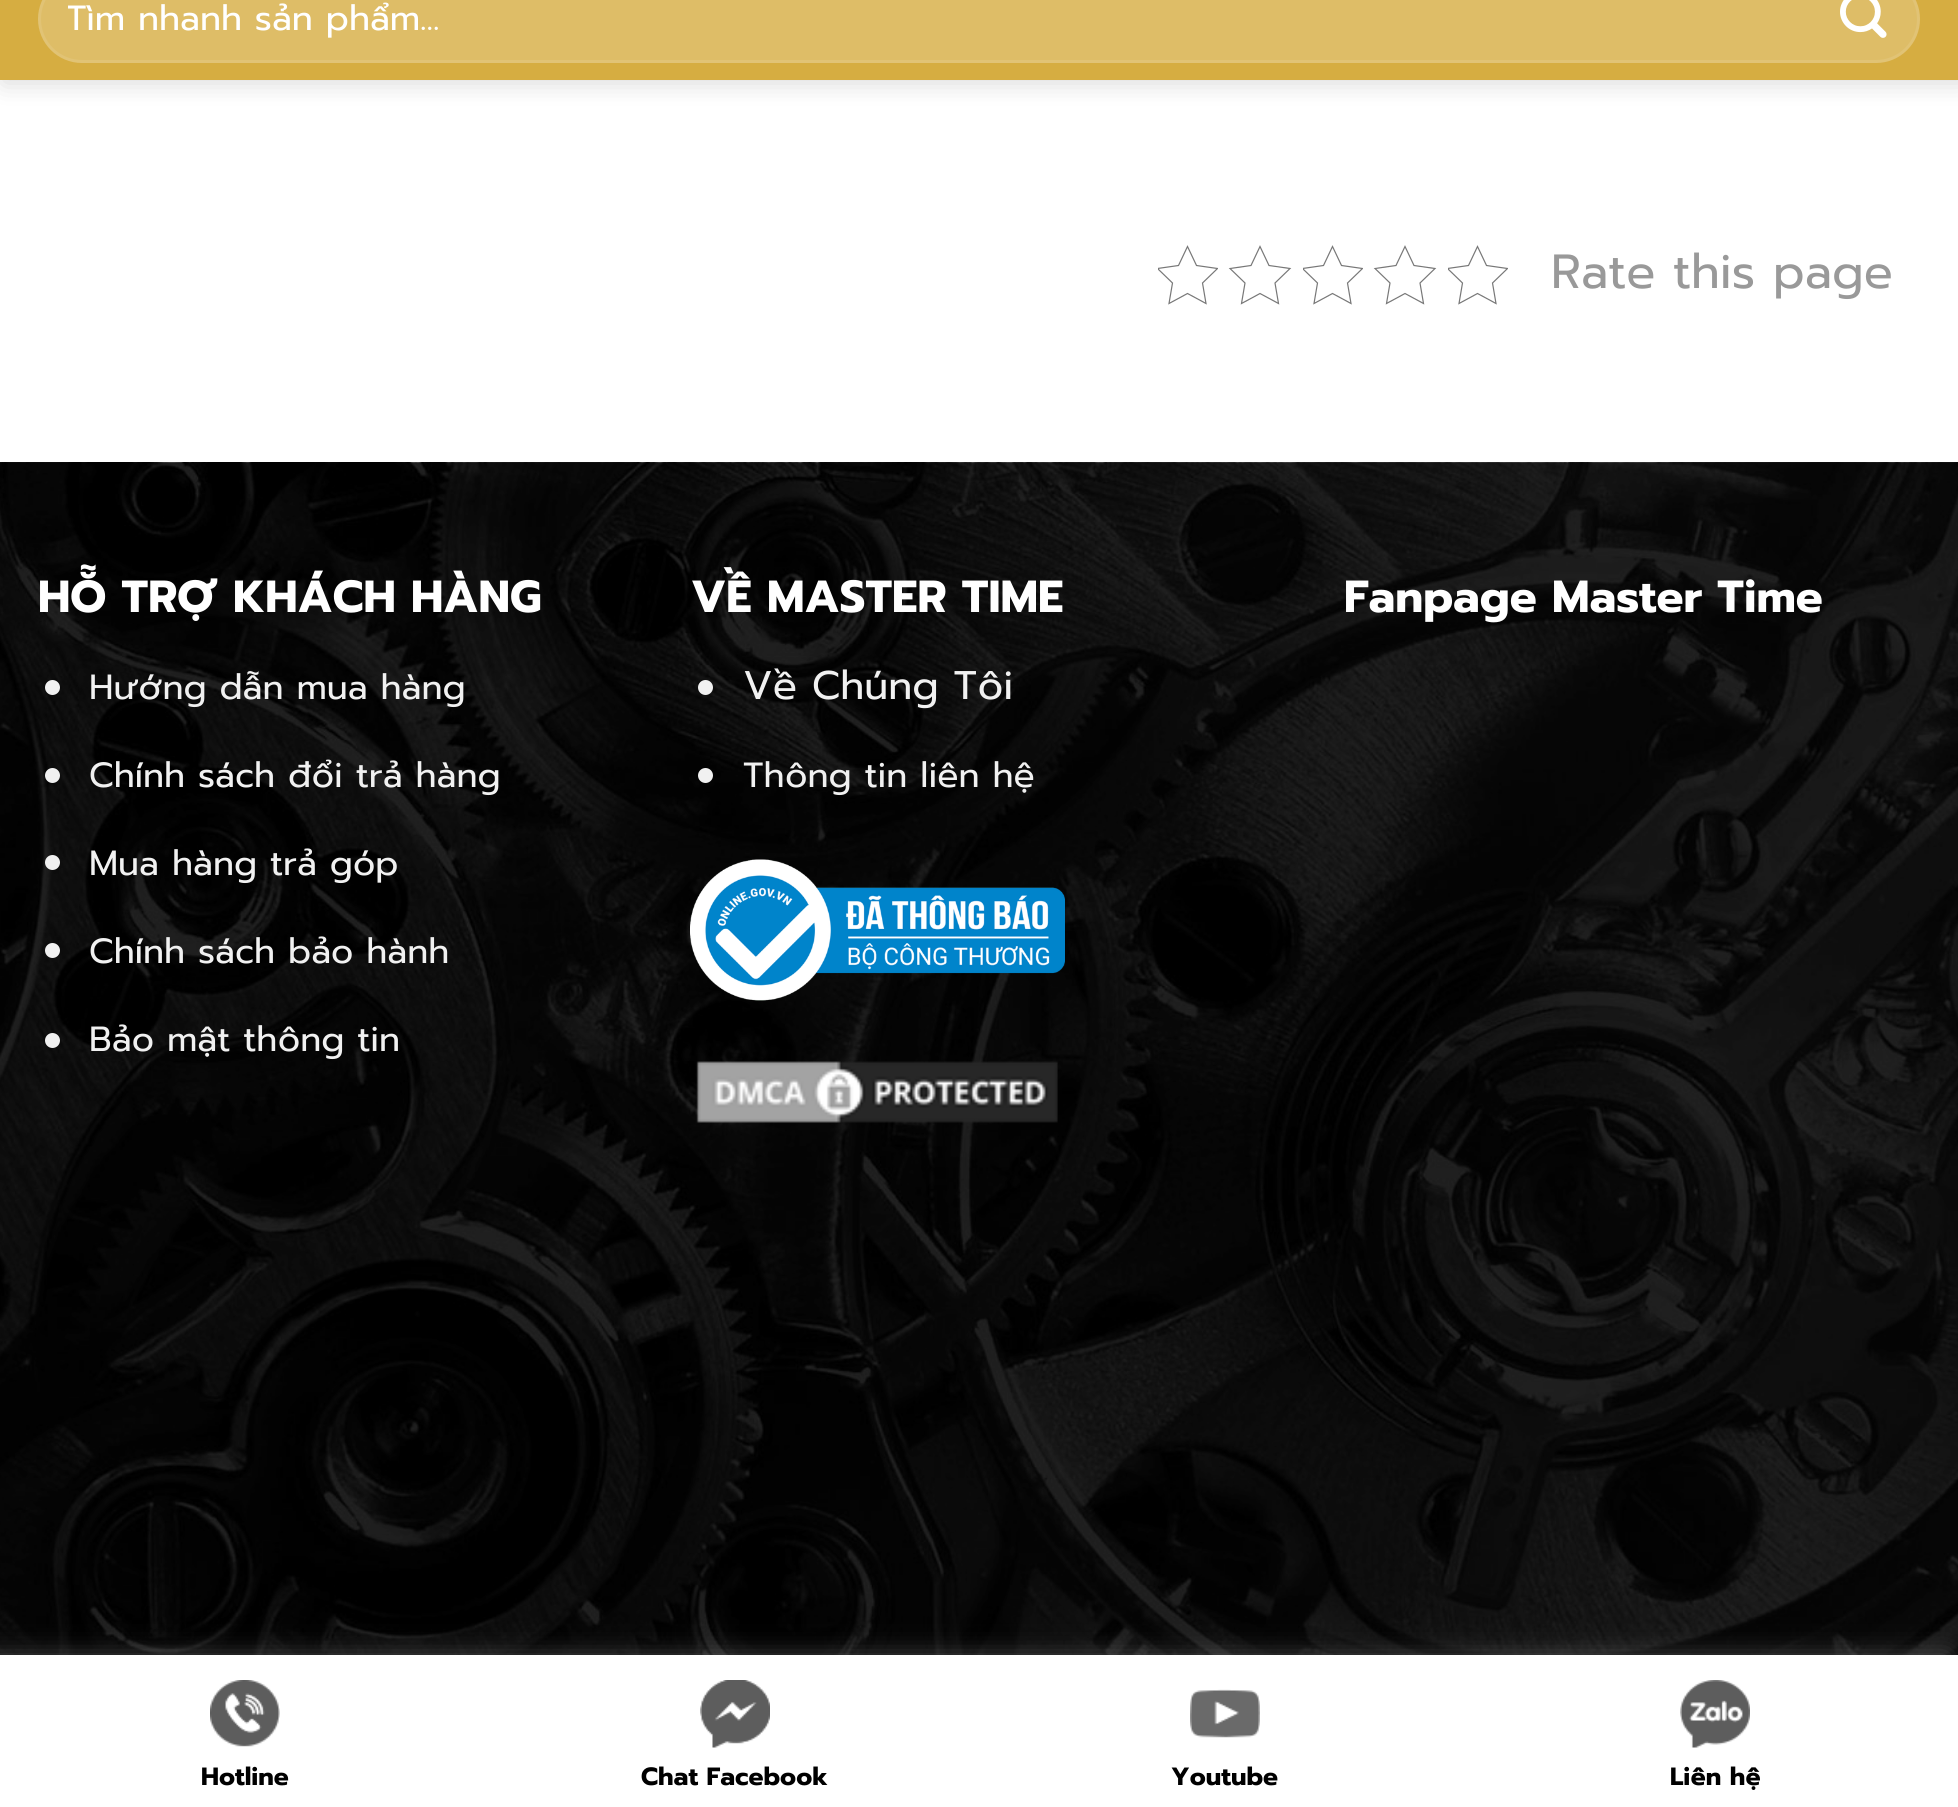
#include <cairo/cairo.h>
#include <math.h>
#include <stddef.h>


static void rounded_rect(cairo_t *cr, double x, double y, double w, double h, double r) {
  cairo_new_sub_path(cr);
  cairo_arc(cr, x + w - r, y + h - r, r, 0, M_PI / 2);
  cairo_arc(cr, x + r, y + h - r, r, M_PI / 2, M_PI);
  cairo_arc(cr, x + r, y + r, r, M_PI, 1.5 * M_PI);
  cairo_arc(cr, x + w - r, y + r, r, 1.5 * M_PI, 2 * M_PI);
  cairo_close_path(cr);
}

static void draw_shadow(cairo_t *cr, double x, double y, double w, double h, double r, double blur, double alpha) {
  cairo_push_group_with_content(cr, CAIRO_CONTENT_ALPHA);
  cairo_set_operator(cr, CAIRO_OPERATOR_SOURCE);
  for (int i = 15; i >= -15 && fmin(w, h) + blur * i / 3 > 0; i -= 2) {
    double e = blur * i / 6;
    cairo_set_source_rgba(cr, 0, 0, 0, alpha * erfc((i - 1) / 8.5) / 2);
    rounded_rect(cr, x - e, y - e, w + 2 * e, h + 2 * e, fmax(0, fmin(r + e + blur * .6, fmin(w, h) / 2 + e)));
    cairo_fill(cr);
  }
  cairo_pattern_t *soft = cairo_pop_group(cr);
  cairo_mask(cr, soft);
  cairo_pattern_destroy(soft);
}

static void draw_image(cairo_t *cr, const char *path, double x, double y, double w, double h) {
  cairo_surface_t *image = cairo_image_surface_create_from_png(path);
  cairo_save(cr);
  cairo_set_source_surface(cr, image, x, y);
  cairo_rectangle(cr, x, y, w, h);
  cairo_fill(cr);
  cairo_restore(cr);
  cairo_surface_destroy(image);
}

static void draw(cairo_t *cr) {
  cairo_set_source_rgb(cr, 1, 1, 1);
  cairo_paint(cr);
  cairo_set_source_rgb(cr, 0, 0, 0);
  draw_shadow(cr, 3, -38, 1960, 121, 0, 12.5, 0.15);
  cairo_set_source_rgb(cr, 214 / 255.0, 173 / 255.0, 65 / 255.0);
  cairo_rectangle(cr, 0, 0, 1958, 80);
  cairo_fill(cr);
  cairo_set_source_rgb(cr, 222 / 255.0, 189 / 255.0, 103 / 255.0);
  rounded_rect(cr, 38, -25, 1882, 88, 44);
  cairo_fill(cr);
  rounded_rect(cr, 39.5, -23.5, 1879, 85, 42.5);
  cairo_set_source_rgba(cr, 1, 1, 1, 0.09);
  cairo_set_line_width(cr, 3);
  cairo_stroke(cr);
  draw_image(cr, "images/1.png", 1840, 0, 47, 38);
  cairo_save(cr);
  cairo_rectangle(cr, 1158, 245, 60, 60);
  cairo_clip(cr);
  cairo_new_path(cr);
  cairo_move_to(cr, 1187.5, 246.5);
  cairo_line_to(cr, 1196.5, 265.5);
  cairo_line_to(cr, 1217.5, 268.5);
  cairo_line_to(cr, 1202.5, 283);
  cairo_line_to(cr, 1206, 303.5);
  cairo_line_to(cr, 1187.5, 293.5);
  cairo_line_to(cr, 1169, 303.5);
  cairo_line_to(cr, 1172.5, 283);
  cairo_line_to(cr, 1157.5, 268.5);
  cairo_line_to(cr, 1178.5, 265.5);
  cairo_close_path(cr);
  cairo_set_source_rgb(cr, 119 / 255.0, 119 / 255.0, 119 / 255.0);
  cairo_set_line_width(cr, 1.2);
  cairo_stroke(cr);
  cairo_restore(cr);
  cairo_new_path(cr);
  cairo_move_to(cr, 1260, 246.5);
  cairo_line_to(cr, 1269, 265.5);
  cairo_line_to(cr, 1290, 268.5);
  cairo_line_to(cr, 1275, 283);
  cairo_line_to(cr, 1278.5, 303.5);
  cairo_line_to(cr, 1260, 293.5);
  cairo_line_to(cr, 1241.5, 303.5);
  cairo_line_to(cr, 1245, 283);
  cairo_line_to(cr, 1230, 268.5);
  cairo_line_to(cr, 1251, 265.5);
  cairo_close_path(cr);
  cairo_set_source_rgb(cr, 119 / 255.0, 119 / 255.0, 119 / 255.0);
  cairo_set_line_width(cr, 1.2);
  cairo_stroke(cr);
  cairo_save(cr);
  cairo_rectangle(cr, 1303, 245, 60, 60);
  cairo_clip(cr);
  cairo_new_path(cr);
  cairo_move_to(cr, 1332.5, 246.5);
  cairo_line_to(cr, 1341.5, 265.5);
  cairo_line_to(cr, 1362.5, 268.5);
  cairo_line_to(cr, 1347.5, 283);
  cairo_line_to(cr, 1351, 303.5);
  cairo_line_to(cr, 1332.5, 293.5);
  cairo_line_to(cr, 1314, 303.5);
  cairo_line_to(cr, 1317.5, 283);
  cairo_line_to(cr, 1302.5, 268.5);
  cairo_line_to(cr, 1323.5, 265.5);
  cairo_close_path(cr);
  cairo_stroke(cr);
  cairo_restore(cr);
  cairo_new_path(cr);
  cairo_move_to(cr, 1405, 246.5);
  cairo_line_to(cr, 1414, 265.5);
  cairo_line_to(cr, 1435, 268.5);
  cairo_line_to(cr, 1420, 283);
  cairo_line_to(cr, 1423.5, 303.5);
  cairo_line_to(cr, 1405, 293.5);
  cairo_line_to(cr, 1386.5, 303.5);
  cairo_line_to(cr, 1390, 283);
  cairo_line_to(cr, 1375, 268.5);
  cairo_line_to(cr, 1396, 265.5);
  cairo_close_path(cr);
  cairo_stroke(cr);
  cairo_save(cr);
  cairo_rectangle(cr, 1448, 245, 60, 60);
  cairo_clip(cr);
  cairo_new_path(cr);
  cairo_move_to(cr, 1477.5, 246.5);
  cairo_line_to(cr, 1486.5, 265.5);
  cairo_line_to(cr, 1507.5, 268.5);
  cairo_line_to(cr, 1492.5, 283);
  cairo_line_to(cr, 1496, 303.5);
  cairo_line_to(cr, 1477.5, 293.5);
  cairo_line_to(cr, 1459, 303.5);
  cairo_line_to(cr, 1462.5, 283);
  cairo_line_to(cr, 1447.5, 268.5);
  cairo_line_to(cr, 1468.5, 265.5);
  cairo_close_path(cr);
  cairo_stroke(cr);
  cairo_restore(cr);
  draw_image(cr, "images/2.png", 0, 462, 1958, 1193);
  cairo_set_source_rgb(cr, 241 / 255.0, 241 / 255.0, 241 / 255.0);
  cairo_arc(cr, 52.5, 687.5, 7.5, 0, 2 * M_PI);
  cairo_fill(cr);
  cairo_arc(cr, 52.5, 775.5, 7.5, 0, 2 * M_PI);
  cairo_fill(cr);
  cairo_arc(cr, 52.5, 862.5, 7.5, 0, 2 * M_PI);
  cairo_fill(cr);
  cairo_arc(cr, 52.5, 950.5, 7.5, 0, 2 * M_PI);
  cairo_fill(cr);
  cairo_arc(cr, 52.5, 1040.5, 7.5, 0, 2 * M_PI);
  cairo_fill(cr);
  cairo_arc(cr, 705.5, 687.5, 7.5, 0, 2 * M_PI);
  cairo_fill(cr);
  cairo_arc(cr, 705.5, 775.5, 7.5, 0, 2 * M_PI);
  cairo_fill(cr);
  draw_image(cr, "images/3.png", 690, 859, 375, 142);
  draw_image(cr, "images/4.png", 696, 1061, 362, 62);
  cairo_set_source_rgb(cr, 136 / 255.0, 136 / 255.0, 136 / 255.0);
  draw_shadow(cr, -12, 1655, 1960, 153, 0, 12.5, 0.49);
  cairo_set_source_rgb(cr, 1, 1, 1);
  cairo_rectangle(cr, 0, 1655, 1958, 152);
  cairo_fill(cr);
  draw_image(cr, "images/5.png", 210, 1680, 70, 67);
  draw_image(cr, "images/6.png", 700, 1680, 70, 68);
  draw_image(cr, "images/7.png", 1190, 1689, 70, 49);
  draw_image(cr, "images/8.png", 1680, 1680, 70, 68);
  cairo_save(cr);
  cairo_rectangle(cr, 68, 0, 1812, 45);
  cairo_clip(cr);
  cairo_select_font_face(cr, "Prompt", CAIRO_FONT_SLANT_NORMAL, CAIRO_FONT_WEIGHT_NORMAL);
  cairo_set_font_size(cr, 35);
  cairo_move_to(cr, 66, 30);
  cairo_show_text(cr, "Tìm nhanh sản phẩm...");
  cairo_restore(cr);
  cairo_select_font_face(cr, "Prompt", CAIRO_FONT_SLANT_NORMAL, CAIRO_FONT_WEIGHT_NORMAL);
  cairo_set_font_size(cr, 48);
  cairo_set_source_rgb(cr, 153 / 255.0, 153 / 255.0, 153 / 255.0);
  cairo_move_to(cr, 1551, 288);
  cairo_show_text(cr, "Rate this page");
  cairo_select_font_face(cr, "Prompt", CAIRO_FONT_SLANT_NORMAL, CAIRO_FONT_WEIGHT_BOLD);
  cairo_set_font_size(cr, 45);
  cairo_set_source_rgb(cr, 1, 1, 1);
  cairo_move_to(cr, 38, 612);
  cairo_show_text(cr, "HỖ TRỢ KHÁCH HÀNG");
  cairo_select_font_face(cr, "Prompt", CAIRO_FONT_SLANT_NORMAL, CAIRO_FONT_WEIGHT_NORMAL);
  cairo_set_font_size(cr, 35);
  cairo_set_source_rgb(cr, 241 / 255.0, 241 / 255.0, 241 / 255.0);
  cairo_move_to(cr, 89, 699);
  cairo_show_text(cr, "Hướng dẫn mua hàng");
  cairo_move_to(cr, 89, 787);
  cairo_show_text(cr, "Chính sách đổi trả hàng");
  cairo_move_to(cr, 89, 875);
  cairo_show_text(cr, "Mua hàng trả góp");
  cairo_move_to(cr, 89, 963);
  cairo_show_text(cr, "Chính sách bảo hành");
  cairo_move_to(cr, 89, 1051);
  cairo_show_text(cr, "Bảo mật thông tin");
  cairo_select_font_face(cr, "Prompt", CAIRO_FONT_SLANT_NORMAL, CAIRO_FONT_WEIGHT_BOLD);
  cairo_set_font_size(cr, 45);
  cairo_set_source_rgb(cr, 1, 1, 1);
  cairo_move_to(cr, 691, 612);
  cairo_show_text(cr, "VỀ MASTER TIME");
  cairo_select_font_face(cr, "Prompt", CAIRO_FONT_SLANT_NORMAL, CAIRO_FONT_WEIGHT_NORMAL);
  cairo_set_font_size(cr, 40);
  cairo_set_source_rgb(cr, 241 / 255.0, 241 / 255.0, 241 / 255.0);
  cairo_move_to(cr, 743, 699);
  cairo_show_text(cr, "Về Chúng Tôi");
  cairo_set_font_size(cr, 35);
  cairo_move_to(cr, 743, 787);
  cairo_show_text(cr, "Thông tin liên hệ");
  cairo_select_font_face(cr, "Prompt", CAIRO_FONT_SLANT_NORMAL, CAIRO_FONT_WEIGHT_BOLD);
  cairo_set_font_size(cr, 45);
  cairo_set_source_rgb(cr, 1, 1, 1);
  cairo_move_to(cr, 1344, 612);
  cairo_show_text(cr, "Fanpage Master Time");
  cairo_set_font_size(cr, 25);
  cairo_set_source_rgb(cr, 0, 0, 0);
  cairo_move_to(cr, 201, 1785);
  cairo_show_text(cr, "Hotline");
  cairo_move_to(cr, 641, 1785);
  cairo_show_text(cr, "Chat Facebook");
  cairo_move_to(cr, 1171, 1785);
  cairo_show_text(cr, "Youtube");
  cairo_move_to(cr, 1670, 1785);
  cairo_show_text(cr, "Liên hệ");
}

int main(void) {
  cairo_surface_t *surface = cairo_image_surface_create(CAIRO_FORMAT_RGB24, 1958, 1807);
  cairo_t *cr = cairo_create(surface);
  cairo_font_options_t *options = cairo_font_options_create();
  cairo_font_options_set_hint_metrics(options, CAIRO_HINT_METRICS_OFF);
  cairo_font_options_set_hint_style(options, CAIRO_HINT_STYLE_NONE);
  cairo_set_font_options(cr, options);
  cairo_set_miter_limit(cr, 4);
  draw(cr);
  cairo_surface_write_to_png(surface, "out.png");
  cairo_font_options_destroy(options);
  cairo_destroy(cr);
  cairo_surface_destroy(surface);
  return 0;
}
